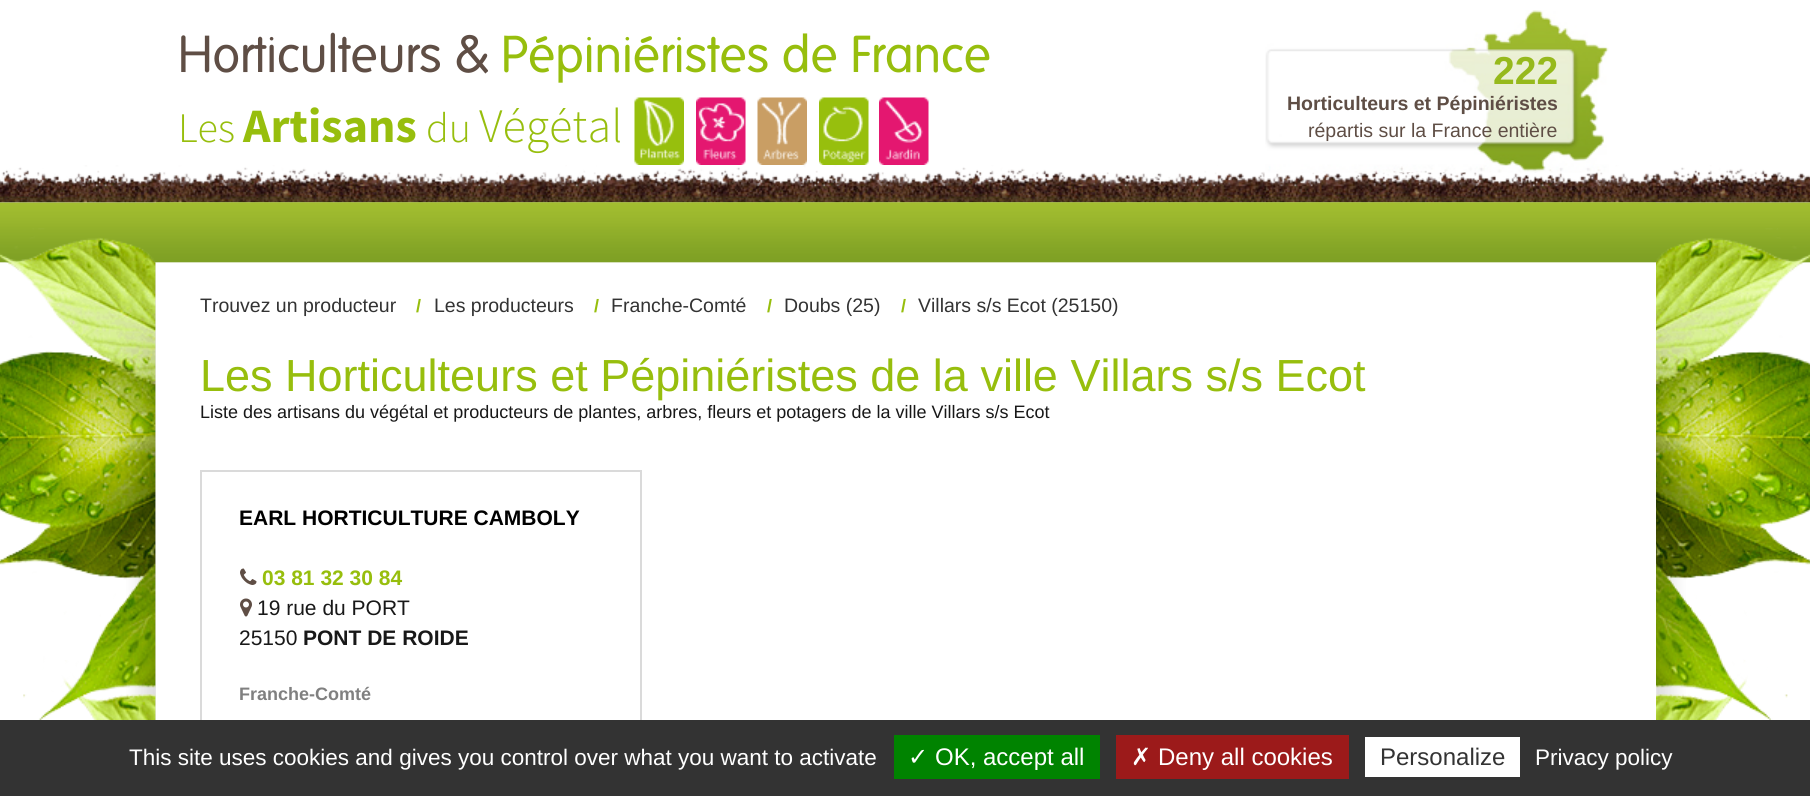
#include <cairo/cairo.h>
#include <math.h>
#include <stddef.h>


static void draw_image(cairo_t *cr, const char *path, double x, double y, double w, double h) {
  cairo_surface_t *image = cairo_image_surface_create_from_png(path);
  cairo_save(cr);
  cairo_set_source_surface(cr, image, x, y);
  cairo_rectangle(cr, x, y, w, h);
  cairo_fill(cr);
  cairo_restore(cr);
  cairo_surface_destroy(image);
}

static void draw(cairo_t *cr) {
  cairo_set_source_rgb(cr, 1, 1, 1);
  cairo_paint(cr);
  draw_image(cr, "images/1.png", 0, 165, 1810, 38);
  draw_image(cr, "images/2.png", 634, 97, 50, 68);
  draw_image(cr, "images/3.png", 696, 97, 50, 68);
  draw_image(cr, "images/4.png", 757, 97, 50, 68);
  draw_image(cr, "images/5.png", 819, 97, 50, 68);
  draw_image(cr, "images/6.png", 879, 97, 50, 68);
  draw_image(cr, "images/7.png", 1265, 10, 344, 163);
  draw_image(cr, "images/11.png", 43, 262, 1705, 458);
  draw_image(cr, "images/8.png", 0, 202, 1810, 61);
  draw_image(cr, "images/10.png", 0, 228, 1810, 492);
  cairo_set_source_rgb(cr, 1, 1, 1);
  cairo_rectangle(cr, 156, 262, 1500, 458);
  cairo_fill(cr);
  draw_image(cr, "images/9.png", 156, 202, 1500, 61);
  draw_image(cr, "images/12.png", 240, 568, 17, 17);
  draw_image(cr, "images/13.png", 240, 598, 12, 19);
  cairo_rectangle(cr, 201, 471, 440, 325);
  cairo_set_source_rgb(cr, 218 / 255.0, 218 / 255.0, 218 / 255.0);
  cairo_stroke(cr);
  cairo_set_source_rgb(cr, 51 / 255.0, 51 / 255.0, 51 / 255.0);
  cairo_rectangle(cr, 0, 720, 1810, 76);
  cairo_fill(cr);
  cairo_set_source_rgb(cr, 0, 131 / 255.0, 0);
  cairo_rectangle(cr, 894, 735, 206, 44);
  cairo_fill(cr);
  cairo_set_source_rgb(cr, 156 / 255.0, 26 / 255.0, 26 / 255.0);
  cairo_rectangle(cr, 1116, 735, 233, 44);
  cairo_fill(cr);
  cairo_set_source_rgb(cr, 1, 1, 1);
  cairo_rectangle(cr, 1365, 737, 155, 40);
  cairo_fill(cr);
  cairo_select_font_face(cr, "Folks", CAIRO_FONT_SLANT_NORMAL, CAIRO_FONT_WEIGHT_NORMAL);
  cairo_set_font_size(cr, 50.4);
  cairo_set_source_rgb(cr, 95 / 255.0, 78 / 255.0, 69 / 255.0);
  cairo_move_to(cr, 178, 72);
  cairo_show_text(cr, "Horticulteurs &");
  cairo_set_source_rgb(cr, 151 / 255.0, 190 / 255.0, 13 / 255.0);
  cairo_move_to(cr, 501, 72);
  cairo_show_text(cr, "Pépiniéristes de France");
  cairo_select_font_face(cr, "Source Sans Pro Light", CAIRO_FONT_SLANT_NORMAL, CAIRO_FONT_WEIGHT_NORMAL);
  cairo_set_font_size(cr, 42);
  cairo_move_to(cr, 178, 142);
  cairo_show_text(cr, "Les");
  cairo_select_font_face(cr, "Source Sans Pro", CAIRO_FONT_SLANT_NORMAL, CAIRO_FONT_WEIGHT_BOLD);
  cairo_set_font_size(cr, 48);
  cairo_move_to(cr, 243, 142);
  cairo_show_text(cr, "Artisans");
  cairo_select_font_face(cr, "Source Sans Pro Light", CAIRO_FONT_SLANT_NORMAL, CAIRO_FONT_WEIGHT_NORMAL);
  cairo_set_font_size(cr, 42);
  cairo_move_to(cr, 426, 142);
  cairo_show_text(cr, "du");
  cairo_set_font_size(cr, 48);
  cairo_move_to(cr, 479, 142);
  cairo_show_text(cr, "Végétal");
  cairo_select_font_face(cr, "Liberation Sans", CAIRO_FONT_SLANT_NORMAL, CAIRO_FONT_WEIGHT_BOLD);
  cairo_set_font_size(cr, 39);
  cairo_set_source_rgb(cr, 150 / 255.0, 185 / 255.0, 28 / 255.0);
  cairo_move_to(cr, 1493, 84);
  cairo_show_text(cr, "222");
  cairo_set_font_size(cr, 19.5);
  cairo_set_source_rgb(cr, 95 / 255.0, 78 / 255.0, 69 / 255.0);
  cairo_move_to(cr, 1287, 110);
  cairo_show_text(cr, "Horticulteurs et Pépiniéristes");
  cairo_select_font_face(cr, "Liberation Sans", CAIRO_FONT_SLANT_NORMAL, CAIRO_FONT_WEIGHT_NORMAL);
  cairo_move_to(cr, 1308, 137);
  cairo_show_text(cr, "répartis sur la France entière");
  cairo_set_source_rgb(cr, 51 / 255.0, 51 / 255.0, 51 / 255.0);
  cairo_move_to(cr, 200, 312);
  cairo_show_text(cr, "Trouvez un producteur");
  cairo_select_font_face(cr, "Liberation Sans", CAIRO_FONT_SLANT_NORMAL, CAIRO_FONT_WEIGHT_BOLD);
  cairo_set_font_size(cr, 18);
  cairo_set_source_rgb(cr, 151 / 255.0, 190 / 255.0, 13 / 255.0);
  cairo_move_to(cr, 416, 312);
  cairo_show_text(cr, "/");
  cairo_select_font_face(cr, "Liberation Sans", CAIRO_FONT_SLANT_NORMAL, CAIRO_FONT_WEIGHT_NORMAL);
  cairo_set_font_size(cr, 19.5);
  cairo_set_source_rgb(cr, 51 / 255.0, 51 / 255.0, 51 / 255.0);
  cairo_move_to(cr, 434, 312);
  cairo_show_text(cr, "Les producteurs");
  cairo_select_font_face(cr, "Liberation Sans", CAIRO_FONT_SLANT_NORMAL, CAIRO_FONT_WEIGHT_BOLD);
  cairo_set_font_size(cr, 18);
  cairo_set_source_rgb(cr, 151 / 255.0, 190 / 255.0, 13 / 255.0);
  cairo_move_to(cr, 594, 312);
  cairo_show_text(cr, "/");
  cairo_select_font_face(cr, "Liberation Sans", CAIRO_FONT_SLANT_NORMAL, CAIRO_FONT_WEIGHT_NORMAL);
  cairo_set_font_size(cr, 19.5);
  cairo_set_source_rgb(cr, 51 / 255.0, 51 / 255.0, 51 / 255.0);
  cairo_move_to(cr, 611, 312);
  cairo_show_text(cr, "Franche-Comté");
  cairo_select_font_face(cr, "Liberation Sans", CAIRO_FONT_SLANT_NORMAL, CAIRO_FONT_WEIGHT_BOLD);
  cairo_set_font_size(cr, 18);
  cairo_set_source_rgb(cr, 151 / 255.0, 190 / 255.0, 13 / 255.0);
  cairo_move_to(cr, 767, 312);
  cairo_show_text(cr, "/");
  cairo_select_font_face(cr, "Liberation Sans", CAIRO_FONT_SLANT_NORMAL, CAIRO_FONT_WEIGHT_NORMAL);
  cairo_set_font_size(cr, 19.5);
  cairo_set_source_rgb(cr, 51 / 255.0, 51 / 255.0, 51 / 255.0);
  cairo_move_to(cr, 784, 312);
  cairo_show_text(cr, "Doubs (25)");
  cairo_select_font_face(cr, "Liberation Sans", CAIRO_FONT_SLANT_NORMAL, CAIRO_FONT_WEIGHT_BOLD);
  cairo_set_font_size(cr, 18);
  cairo_set_source_rgb(cr, 151 / 255.0, 190 / 255.0, 13 / 255.0);
  cairo_move_to(cr, 901, 312);
  cairo_show_text(cr, "/");
  cairo_select_font_face(cr, "Liberation Sans", CAIRO_FONT_SLANT_NORMAL, CAIRO_FONT_WEIGHT_NORMAL);
  cairo_set_font_size(cr, 19.5);
  cairo_set_source_rgb(cr, 51 / 255.0, 51 / 255.0, 51 / 255.0);
  cairo_move_to(cr, 918, 312);
  cairo_show_text(cr, "Villars s/s Ecot (25150)");
  cairo_set_font_size(cr, 45);
  cairo_set_source_rgb(cr, 151 / 255.0, 190 / 255.0, 13 / 255.0);
  cairo_move_to(cr, 200, 391);
  cairo_show_text(cr, "Les Horticulteurs et Pépiniéristes de la ville Villars s/s Ecot");
  cairo_set_font_size(cr, 18);
  cairo_set_source_rgb(cr, 24 / 255.0, 24 / 255.0, 24 / 255.0);
  cairo_move_to(cr, 200, 418);
  cairo_show_text(cr, "Liste des artisans du végétal et producteurs de plantes, arbres, fleurs et potagers de la ville Villars s/s Ecot");
  cairo_select_font_face(cr, "Liberation Sans", CAIRO_FONT_SLANT_NORMAL, CAIRO_FONT_WEIGHT_BOLD);
  cairo_set_font_size(cr, 21);
  cairo_set_source_rgb(cr, 0, 0, 0);
  cairo_move_to(cr, 239, 525);
  cairo_show_text(cr, "EARL HORTICULTURE CAMBOLY");
  cairo_set_source_rgb(cr, 151 / 255.0, 190 / 255.0, 13 / 255.0);
  cairo_move_to(cr, 262, 585);
  cairo_show_text(cr, "03 81 32 30 84");
  cairo_select_font_face(cr, "Liberation Sans", CAIRO_FONT_SLANT_NORMAL, CAIRO_FONT_WEIGHT_NORMAL);
  cairo_set_source_rgb(cr, 24 / 255.0, 24 / 255.0, 24 / 255.0);
  cairo_move_to(cr, 257, 615);
  cairo_show_text(cr, "19 rue du PORT");
  cairo_move_to(cr, 239, 645);
  cairo_show_text(cr, "25150");
  cairo_select_font_face(cr, "Liberation Sans", CAIRO_FONT_SLANT_NORMAL, CAIRO_FONT_WEIGHT_BOLD);
  cairo_move_to(cr, 303, 645);
  cairo_show_text(cr, "PONT DE ROIDE");
  cairo_set_font_size(cr, 18);
  cairo_set_source_rgb(cr, 128 / 255.0, 128 / 255.0, 128 / 255.0);
  cairo_move_to(cr, 239, 700);
  cairo_show_text(cr, "Franche-Comté");
  cairo_select_font_face(cr, "Liberation Sans", CAIRO_FONT_SLANT_NORMAL, CAIRO_FONT_WEIGHT_NORMAL);
  cairo_set_font_size(cr, 22.5);
  cairo_set_source_rgb(cr, 1, 1, 1);
  cairo_move_to(cr, 129, 765);
  cairo_show_text(cr, "This site uses cookies and gives you control over what you want to activate");
  cairo_select_font_face(cr, "DejaVu Sans", CAIRO_FONT_SLANT_NORMAL, CAIRO_FONT_WEIGHT_NORMAL);
  cairo_set_font_size(cr, 24);
  cairo_move_to(cr, 908, 765);
  cairo_show_text(cr, "✓");
  cairo_select_font_face(cr, "Liberation Sans", CAIRO_FONT_SLANT_NORMAL, CAIRO_FONT_WEIGHT_NORMAL);
  cairo_move_to(cr, 935, 765);
  cairo_show_text(cr, "OK, accept all");
  cairo_select_font_face(cr, "DejaVu Sans", CAIRO_FONT_SLANT_NORMAL, CAIRO_FONT_WEIGHT_NORMAL);
  cairo_move_to(cr, 1131, 765);
  cairo_show_text(cr, "✗");
  cairo_select_font_face(cr, "Liberation Sans", CAIRO_FONT_SLANT_NORMAL, CAIRO_FONT_WEIGHT_NORMAL);
  cairo_move_to(cr, 1158, 765);
  cairo_show_text(cr, "Deny all cookies");
  cairo_set_source_rgb(cr, 51 / 255.0, 51 / 255.0, 51 / 255.0);
  cairo_move_to(cr, 1380, 765);
  cairo_show_text(cr, "Personalize");
  cairo_set_font_size(cr, 22.5);
  cairo_set_source_rgb(cr, 1, 1, 1);
  cairo_move_to(cr, 1535, 765);
  cairo_show_text(cr, "Privacy policy");
}

int main(void) {
  cairo_surface_t *surface = cairo_image_surface_create(CAIRO_FORMAT_RGB24, 1810, 796);
  cairo_t *cr = cairo_create(surface);
  cairo_font_options_t *options = cairo_font_options_create();
  cairo_font_options_set_hint_metrics(options, CAIRO_HINT_METRICS_OFF);
  cairo_font_options_set_hint_style(options, CAIRO_HINT_STYLE_NONE);
  cairo_set_font_options(cr, options);
  cairo_set_miter_limit(cr, 4);
  draw(cr);
  cairo_surface_write_to_png(surface, "out.png");
  cairo_font_options_destroy(options);
  cairo_destroy(cr);
  cairo_surface_destroy(surface);
  return 0;
}
